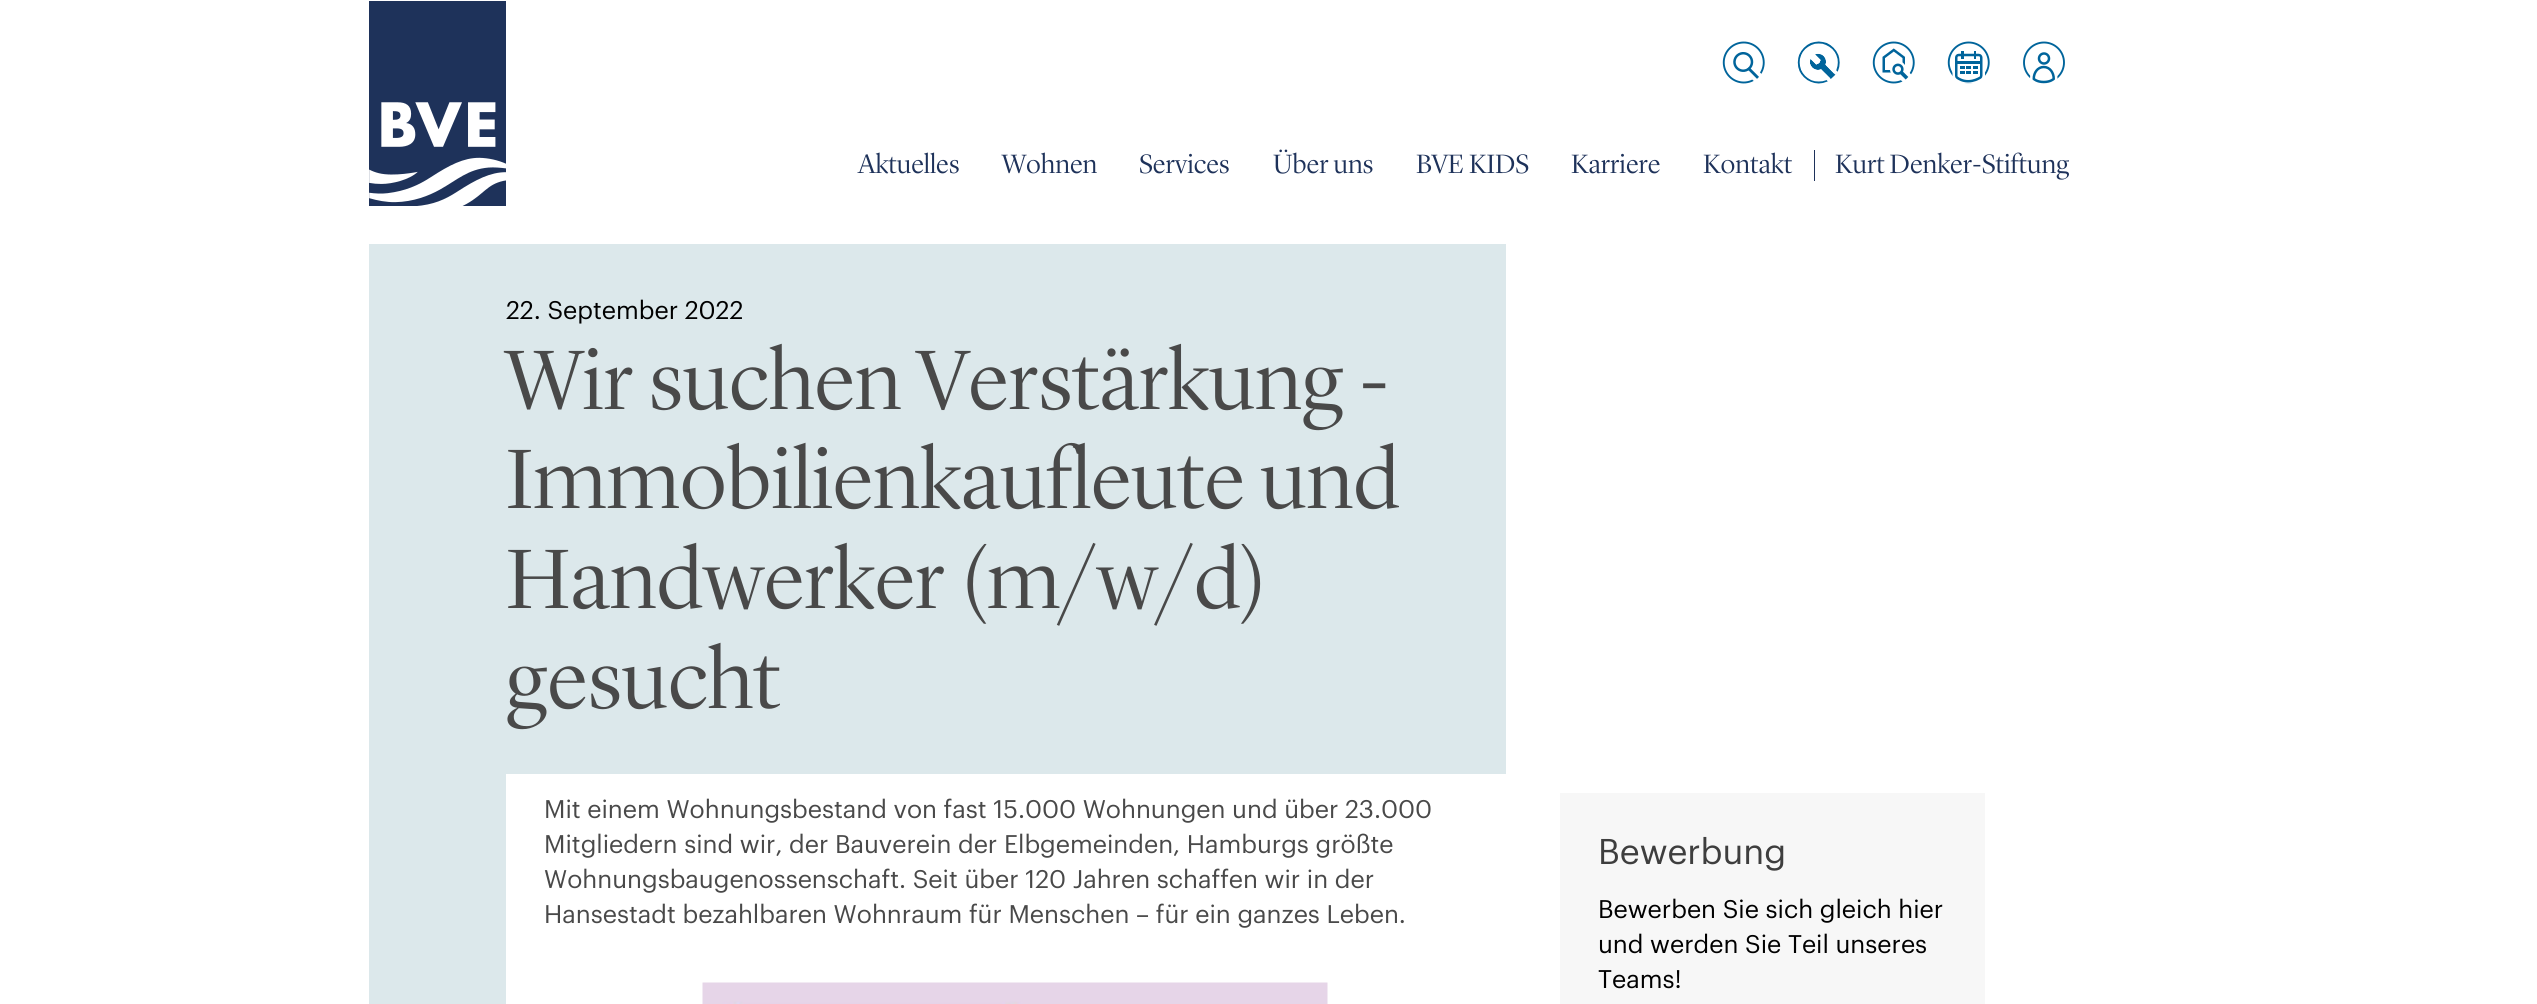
#include <cairo/cairo.h>
#include <math.h>
#include <stddef.h>


static void draw_image(cairo_t *cr, const char *path, double x, double y, double w, double h) {
  cairo_surface_t *image = cairo_image_surface_create_from_png(path);
  cairo_save(cr);
  cairo_set_source_surface(cr, image, x, y);
  cairo_rectangle(cr, x, y, w, h);
  cairo_fill(cr);
  cairo_restore(cr);
  cairo_surface_destroy(image);
}

static void draw(cairo_t *cr) {
  cairo_set_source_rgb(cr, 1, 1, 1);
  cairo_paint(cr);
  draw_image(cr, "images/1.png", 369, 1, 137, 205);
  draw_image(cr, "images/2.png", 1722, 41, 43, 43);
  draw_image(cr, "images/3.png", 1797, 41, 43, 43);
  draw_image(cr, "images/4.png", 1872, 41, 43, 43);
  draw_image(cr, "images/5.png", 1947, 41, 43, 43);
  draw_image(cr, "images/6.png", 2023, 41, 42, 43);
  cairo_set_source_rgb(cr, 30 / 255.0, 50 / 255.0, 90 / 255.0);
  cairo_rectangle(cr, 1814, 150, 1, 31);
  cairo_fill(cr);
  cairo_set_source_rgb(cr, 220 / 255.0, 232 / 255.0, 235 / 255.0);
  cairo_rectangle(cr, 369, 244, 1137, 760);
  cairo_fill(cr);
  cairo_set_source_rgb(cr, 1, 1, 1);
  cairo_rectangle(cr, 506, 774, 1000, 230);
  cairo_fill(cr);
  draw_image(cr, "images/7.png", 702, 982, 626, 22);
  cairo_set_source_rgb(cr, 247 / 255.0, 247 / 255.0, 247 / 255.0);
  cairo_rectangle(cr, 1560, 793, 425, 211);
  cairo_fill(cr);
  cairo_select_font_face(cr, "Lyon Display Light", CAIRO_FONT_SLANT_NORMAL, CAIRO_FONT_WEIGHT_NORMAL);
  cairo_set_font_size(cr, 27.5);
  cairo_set_source_rgb(cr, 30 / 255.0, 50 / 255.0, 90 / 255.0);
  cairo_move_to(cr, 858, 173);
  cairo_show_text(cr, "Aktuelles");
  cairo_move_to(cr, 1002, 173);
  cairo_show_text(cr, "Wohnen");
  cairo_move_to(cr, 1139, 173);
  cairo_show_text(cr, "Services");
  cairo_move_to(cr, 1273, 173);
  cairo_show_text(cr, "Über uns");
  cairo_move_to(cr, 1416, 173);
  cairo_show_text(cr, "BVE KIDS");
  cairo_move_to(cr, 1571, 173);
  cairo_show_text(cr, "Karriere");
  cairo_move_to(cr, 1703, 173);
  cairo_show_text(cr, "Kontakt");
  cairo_move_to(cr, 1835, 173);
  cairo_show_text(cr, "Kurt Denker-Stiftung");
  cairo_select_font_face(cr, "Graphik", CAIRO_FONT_SLANT_NORMAL, CAIRO_FONT_WEIGHT_NORMAL);
  cairo_set_font_size(cr, 25);
  cairo_set_source_rgb(cr, 0, 0, 0);
  cairo_move_to(cr, 506, 319);
  cairo_show_text(cr, "22. September 2022");
  cairo_select_font_face(cr, "Lyon Display Light", CAIRO_FONT_SLANT_NORMAL, CAIRO_FONT_WEIGHT_NORMAL);
  cairo_set_font_size(cr, 87.5);
  cairo_set_source_rgb(cr, 73 / 255.0, 73 / 255.0, 73 / 255.0);
  cairo_move_to(cr, 506, 409);
  cairo_show_text(cr, "Wir suchen Verstärkung -");
  cairo_move_to(cr, 506, 508);
  cairo_show_text(cr, "Immobilienkaufleute und");
  cairo_move_to(cr, 506, 608);
  cairo_show_text(cr, "Handwerker (m/w/d)");
  cairo_move_to(cr, 506, 708);
  cairo_show_text(cr, "gesucht");
  cairo_select_font_face(cr, "Graphik", CAIRO_FONT_SLANT_NORMAL, CAIRO_FONT_WEIGHT_NORMAL);
  cairo_set_font_size(cr, 25);
  cairo_move_to(cr, 544, 818);
  cairo_show_text(cr, "Mit einem Wohnungsbestand von fast 15.000 Wohnungen und über 23.000");
  cairo_move_to(cr, 544, 853);
  cairo_show_text(cr, "Mitgliedern sind wir, der Bauverein der Elbgemeinden, Hamburgs größte");
  cairo_move_to(cr, 544, 888);
  cairo_show_text(cr, "Wohnungsbaugenossenschaft. Seit über 120 Jahren schaffen wir in der");
  cairo_move_to(cr, 544, 923);
  cairo_show_text(cr, "Hansestadt bezahlbaren Wohnraum für Menschen – für ein ganzes Leben.");
  cairo_set_font_size(cr, 35);
  cairo_set_source_rgb(cr, 62 / 255.0, 62 / 255.0, 62 / 255.0);
  cairo_move_to(cr, 1598, 864);
  cairo_show_text(cr, "Bewerbung");
  cairo_set_font_size(cr, 25);
  cairo_set_source_rgb(cr, 0, 0, 0);
  cairo_move_to(cr, 1598, 918);
  cairo_show_text(cr, "Bewerben Sie sich gleich hier");
  cairo_move_to(cr, 1598, 953);
  cairo_show_text(cr, "und werden Sie Teil unseres");
  cairo_move_to(cr, 1598, 988);
  cairo_show_text(cr, "Teams!");
}

int main(void) {
  cairo_surface_t *surface = cairo_image_surface_create(CAIRO_FORMAT_RGB24, 2537, 1004);
  cairo_t *cr = cairo_create(surface);
  cairo_font_options_t *options = cairo_font_options_create();
  cairo_font_options_set_hint_metrics(options, CAIRO_HINT_METRICS_OFF);
  cairo_font_options_set_hint_style(options, CAIRO_HINT_STYLE_NONE);
  cairo_set_font_options(cr, options);
  cairo_set_miter_limit(cr, 4);
  draw(cr);
  cairo_surface_write_to_png(surface, "out.png");
  cairo_font_options_destroy(options);
  cairo_destroy(cr);
  cairo_surface_destroy(surface);
  return 0;
}
